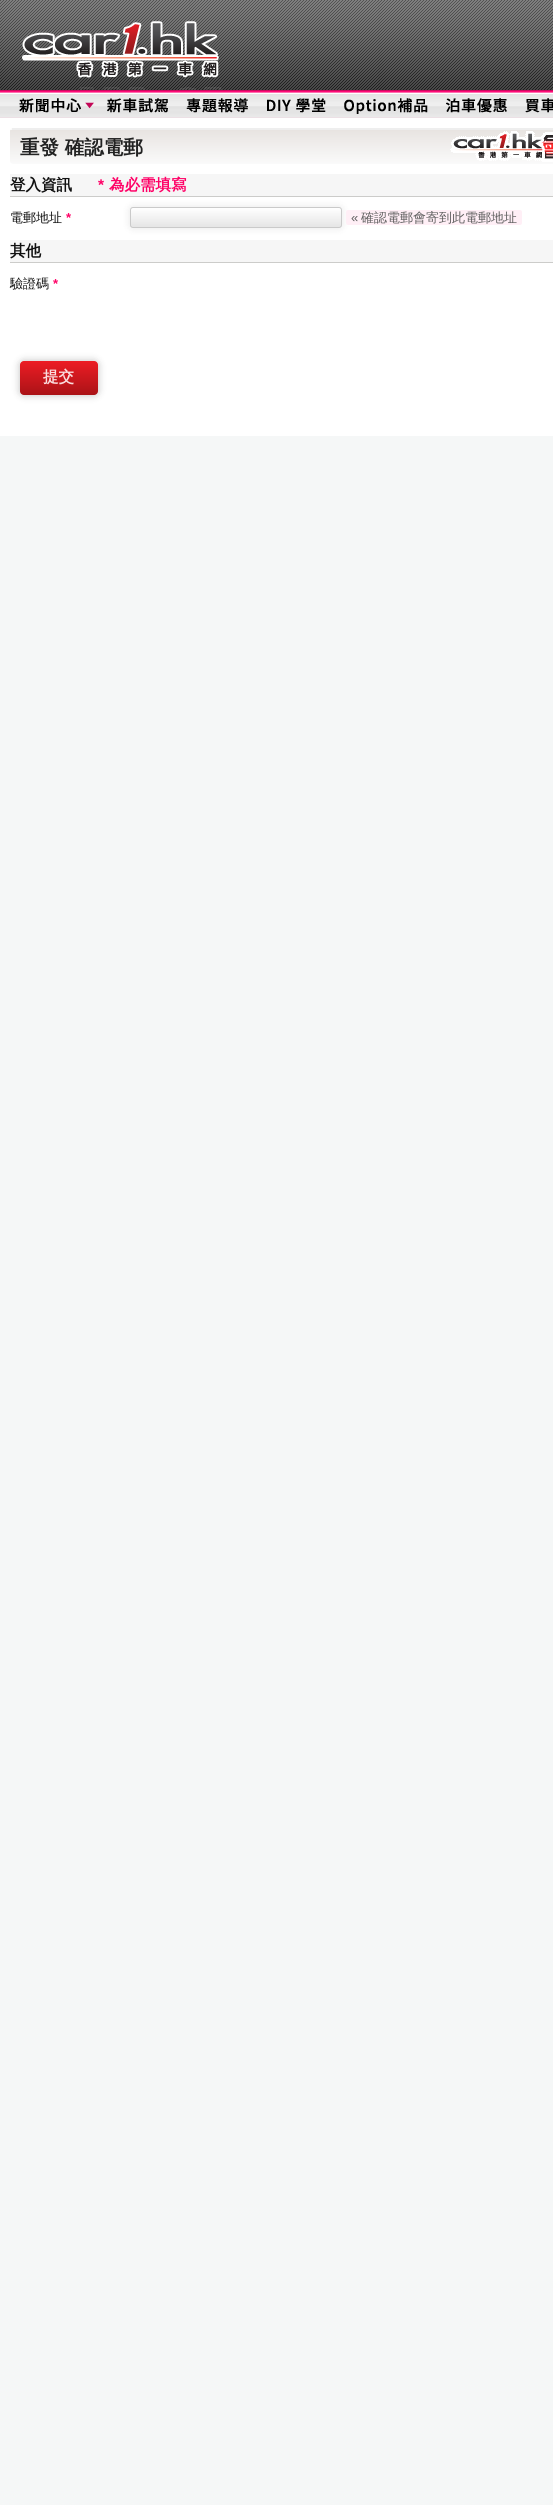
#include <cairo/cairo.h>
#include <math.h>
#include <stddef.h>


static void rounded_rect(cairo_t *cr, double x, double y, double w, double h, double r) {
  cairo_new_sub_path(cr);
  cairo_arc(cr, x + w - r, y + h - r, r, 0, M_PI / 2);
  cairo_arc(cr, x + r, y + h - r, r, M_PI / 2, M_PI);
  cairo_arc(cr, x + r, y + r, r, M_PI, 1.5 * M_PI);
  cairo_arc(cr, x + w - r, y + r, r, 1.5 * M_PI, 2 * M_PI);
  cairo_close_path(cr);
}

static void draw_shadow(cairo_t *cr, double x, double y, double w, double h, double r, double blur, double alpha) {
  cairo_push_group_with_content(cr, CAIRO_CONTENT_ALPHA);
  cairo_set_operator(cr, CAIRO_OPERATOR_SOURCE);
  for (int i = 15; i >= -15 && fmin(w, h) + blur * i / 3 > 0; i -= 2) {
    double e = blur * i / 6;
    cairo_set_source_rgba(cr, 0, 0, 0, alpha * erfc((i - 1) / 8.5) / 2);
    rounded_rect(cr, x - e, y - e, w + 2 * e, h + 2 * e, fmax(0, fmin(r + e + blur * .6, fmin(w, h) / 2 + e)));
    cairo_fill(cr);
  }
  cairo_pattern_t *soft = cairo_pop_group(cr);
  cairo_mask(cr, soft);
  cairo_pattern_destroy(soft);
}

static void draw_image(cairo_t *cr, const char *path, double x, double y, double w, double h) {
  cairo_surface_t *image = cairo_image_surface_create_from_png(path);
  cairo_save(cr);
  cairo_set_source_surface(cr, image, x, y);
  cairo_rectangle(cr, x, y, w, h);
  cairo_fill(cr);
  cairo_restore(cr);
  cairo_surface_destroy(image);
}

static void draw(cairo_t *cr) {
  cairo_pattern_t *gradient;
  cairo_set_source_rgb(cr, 245 / 255.0, 247 / 255.0, 247 / 255.0);
  cairo_paint(cr);
  draw_image(cr, "images/1.png", 0, 0, 553, 118);
  draw_image(cr, "images/2.png", 22, 21, 200, 69);
  draw_image(cr, "images/3.png", 19, 98, 534, 16);
  cairo_set_source_rgb(cr, 1, 1, 1);
  cairo_rectangle(cr, 0, 118, 553, 318);
  cairo_fill(cr);
  cairo_save(cr);
  rounded_rect(cr, 10, 128, 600, 36, 3);
  cairo_clip(cr);
  gradient = cairo_pattern_create_linear(310, 96, 310, 130);
  cairo_pattern_add_color_stop_rgba(gradient, 0, 232 / 255.0, 228 / 255.0, 225 / 255.0, 1);
  cairo_pattern_add_color_stop_rgba(gradient, 1, 250 / 255.0, 250 / 255.0, 250 / 255.0, 1);
  cairo_set_source(cr, gradient);
  cairo_pattern_destroy(gradient);
  cairo_rectangle(cr, 10, 128, 2, 2);
  cairo_fill(cr);
  gradient = cairo_pattern_create_linear(310, 130, 310, 164);
  cairo_pattern_add_color_stop_rgba(gradient, 0, 232 / 255.0, 228 / 255.0, 225 / 255.0, 1);
  cairo_pattern_add_color_stop_rgba(gradient, 1, 250 / 255.0, 250 / 255.0, 250 / 255.0, 1);
  cairo_set_source(cr, gradient);
  cairo_pattern_destroy(gradient);
  cairo_new_path(cr);
  cairo_move_to(cr, 10, 130);
  cairo_line_to(cr, 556, 130);
  cairo_line_to(cr, 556, 161);
  cairo_curve_to(cr, 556, 162.5, 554.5, 164, 553, 164);
  cairo_line_to(cr, 13, 164);
  cairo_curve_to(cr, 11.5, 164, 10, 162.5, 10, 161);
  cairo_close_path(cr);
  cairo_fill(cr);
  cairo_restore(cr);
  cairo_set_source_rgb(cr, 238 / 255.0, 238 / 255.0, 238 / 255.0);
  cairo_rectangle(cr, 12, 128, 541, 2);
  cairo_fill(cr);
  draw_image(cr, "images/4.png", 450, 131, 103, 31);
  cairo_set_source_rgb(cr, 246 / 255.0, 246 / 255.0, 246 / 255.0);
  cairo_rectangle(cr, 10, 174, 543, 22);
  cairo_fill(cr);
  cairo_set_source_rgb(cr, 204 / 255.0, 204 / 255.0, 202 / 255.0);
  cairo_rectangle(cr, 10, 196, 543, 1);
  cairo_fill(cr);
  cairo_set_source_rgb(cr, 246 / 255.0, 246 / 255.0, 246 / 255.0);
  cairo_rectangle(cr, 10, 240, 543, 22);
  cairo_fill(cr);
  cairo_set_source_rgb(cr, 0, 0, 0);
  draw_shadow(cr, 130, 207, 212, 21, 3, 4, 0.1);
  cairo_save(cr);
  rounded_rect(cr, 130, 207, 212, 21, 3);
  cairo_clip(cr);
  gradient = cairo_pattern_create_linear(236, 208, 236, 227);
  cairo_pattern_add_color_stop_rgba(gradient, 0, 1, 1, 1, 1);
  cairo_pattern_add_color_stop_rgba(gradient, 1, 229 / 255.0, 229 / 255.0, 229 / 255.0, 1);
  cairo_set_source(cr, gradient);
  cairo_pattern_destroy(gradient);
  cairo_rectangle(cr, 130, 208, 212, 19);
  cairo_fill(cr);
  cairo_restore(cr);
  rounded_rect(cr, 130.5, 207.5, 211, 20, 2.5);
  cairo_set_source_rgb(cr, 202 / 255.0, 202 / 255.0, 202 / 255.0);
  cairo_set_line_width(cr, 1);
  cairo_stroke(cr);
  cairo_set_source_rgb(cr, 1, 239 / 255.0, 246 / 255.0);
  rounded_rect(cr, 346, 210, 176, 15, 2);
  cairo_fill(cr);
  cairo_set_source_rgb(cr, 204 / 255.0, 204 / 255.0, 202 / 255.0);
  cairo_rectangle(cr, 10, 262, 543, 1);
  cairo_fill(cr);
  cairo_set_source_rgb(cr, 0, 0, 0);
  draw_shadow(cr, 20, 361, 78, 34, 4, 4, 0.25);
  gradient = cairo_pattern_create_linear(20, 361, 20, 395);
  cairo_pattern_add_color_stop_rgba(gradient, 0, 237 / 255.0, 28 / 255.0, 36 / 255.0, 1);
  cairo_pattern_add_color_stop_rgba(gradient, 1, 170 / 255.0, 19 / 255.0, 23 / 255.0, 1);
  cairo_set_source(cr, gradient);
  cairo_pattern_destroy(gradient);
  rounded_rect(cr, 20, 361, 78, 34, 4);
  cairo_fill(cr);
  cairo_select_font_face(cr, "WenQuanYi Zen Hei", CAIRO_FONT_SLANT_NORMAL, CAIRO_FONT_WEIGHT_BOLD);
  cairo_set_font_size(cr, 19.5);
  cairo_set_source_rgb(cr, 34 / 255.0, 34 / 255.0, 34 / 255.0);
  cairo_move_to(cr, 20, 154);
  cairo_show_text(cr, "重發 確認電郵");
  cairo_set_font_size(cr, 15.5);
  cairo_set_source_rgb(cr, 17 / 255.0, 17 / 255.0, 17 / 255.0);
  cairo_move_to(cr, 10, 190);
  cairo_show_text(cr, "登入資訊");
  cairo_select_font_face(cr, "Liberation Sans", CAIRO_FONT_SLANT_NORMAL, CAIRO_FONT_WEIGHT_BOLD);
  cairo_set_source_rgb(cr, 1, 0, 102 / 255.0);
  cairo_move_to(cr, 98, 190);
  cairo_show_text(cr, "*");
  cairo_select_font_face(cr, "WenQuanYi Zen Hei", CAIRO_FONT_SLANT_NORMAL, CAIRO_FONT_WEIGHT_BOLD);
  cairo_move_to(cr, 109, 190);
  cairo_show_text(cr, "為必需填寫");
  cairo_select_font_face(cr, "WenQuanYi Zen Hei Medium", CAIRO_FONT_SLANT_NORMAL, CAIRO_FONT_WEIGHT_NORMAL);
  cairo_set_font_size(cr, 13);
  cairo_set_source_rgb(cr, 17 / 255.0, 17 / 255.0, 17 / 255.0);
  cairo_move_to(cr, 10, 222);
  cairo_show_text(cr, "電郵地址");
  cairo_select_font_face(cr, "Liberation Sans", CAIRO_FONT_SLANT_NORMAL, CAIRO_FONT_WEIGHT_BOLD);
  cairo_set_source_rgb(cr, 1, 0, 102 / 255.0);
  cairo_move_to(cr, 66, 222);
  cairo_show_text(cr, "*");
  cairo_select_font_face(cr, "WenQuanYi Zen Hei Medium", CAIRO_FONT_SLANT_NORMAL, CAIRO_FONT_WEIGHT_NORMAL);
  cairo_set_source_rgb(cr, 95 / 255.0, 95 / 255.0, 95 / 255.0);
  cairo_move_to(cr, 361, 222);
  cairo_show_text(cr, "確認電郵會寄到此電郵地址");
  cairo_select_font_face(cr, "Liberation Sans", CAIRO_FONT_SLANT_NORMAL, CAIRO_FONT_WEIGHT_NORMAL);
  cairo_move_to(cr, 351, 222);
  cairo_show_text(cr, "«");
  cairo_select_font_face(cr, "WenQuanYi Zen Hei", CAIRO_FONT_SLANT_NORMAL, CAIRO_FONT_WEIGHT_BOLD);
  cairo_set_font_size(cr, 15.5);
  cairo_set_source_rgb(cr, 17 / 255.0, 17 / 255.0, 17 / 255.0);
  cairo_move_to(cr, 10, 256);
  cairo_show_text(cr, "其他");
  cairo_select_font_face(cr, "WenQuanYi Zen Hei Medium", CAIRO_FONT_SLANT_NORMAL, CAIRO_FONT_WEIGHT_NORMAL);
  cairo_set_font_size(cr, 13);
  cairo_move_to(cr, 10, 288);
  cairo_show_text(cr, "驗證碼");
  cairo_select_font_face(cr, "Liberation Sans", CAIRO_FONT_SLANT_NORMAL, CAIRO_FONT_WEIGHT_BOLD);
  cairo_set_source_rgb(cr, 1, 0, 102 / 255.0);
  cairo_move_to(cr, 53, 288);
  cairo_show_text(cr, "*");
  cairo_select_font_face(cr, "WenQuanYi Zen Hei", CAIRO_FONT_SLANT_NORMAL, CAIRO_FONT_WEIGHT_BOLD);
  cairo_set_font_size(cr, 15.5);
  cairo_set_source_rgb(cr, 250 / 255.0, 221 / 255.0, 222 / 255.0);
  cairo_move_to(cr, 43, 382);
  cairo_show_text(cr, "提交");
}

int main(void) {
  cairo_surface_t *surface = cairo_image_surface_create(CAIRO_FORMAT_RGB24, 553, 2505);
  cairo_t *cr = cairo_create(surface);
  cairo_font_options_t *options = cairo_font_options_create();
  cairo_font_options_set_hint_metrics(options, CAIRO_HINT_METRICS_OFF);
  cairo_font_options_set_hint_style(options, CAIRO_HINT_STYLE_NONE);
  cairo_set_font_options(cr, options);
  cairo_set_miter_limit(cr, 4);
  draw(cr);
  cairo_surface_write_to_png(surface, "out.png");
  cairo_font_options_destroy(options);
  cairo_destroy(cr);
  cairo_surface_destroy(surface);
  return 0;
}
